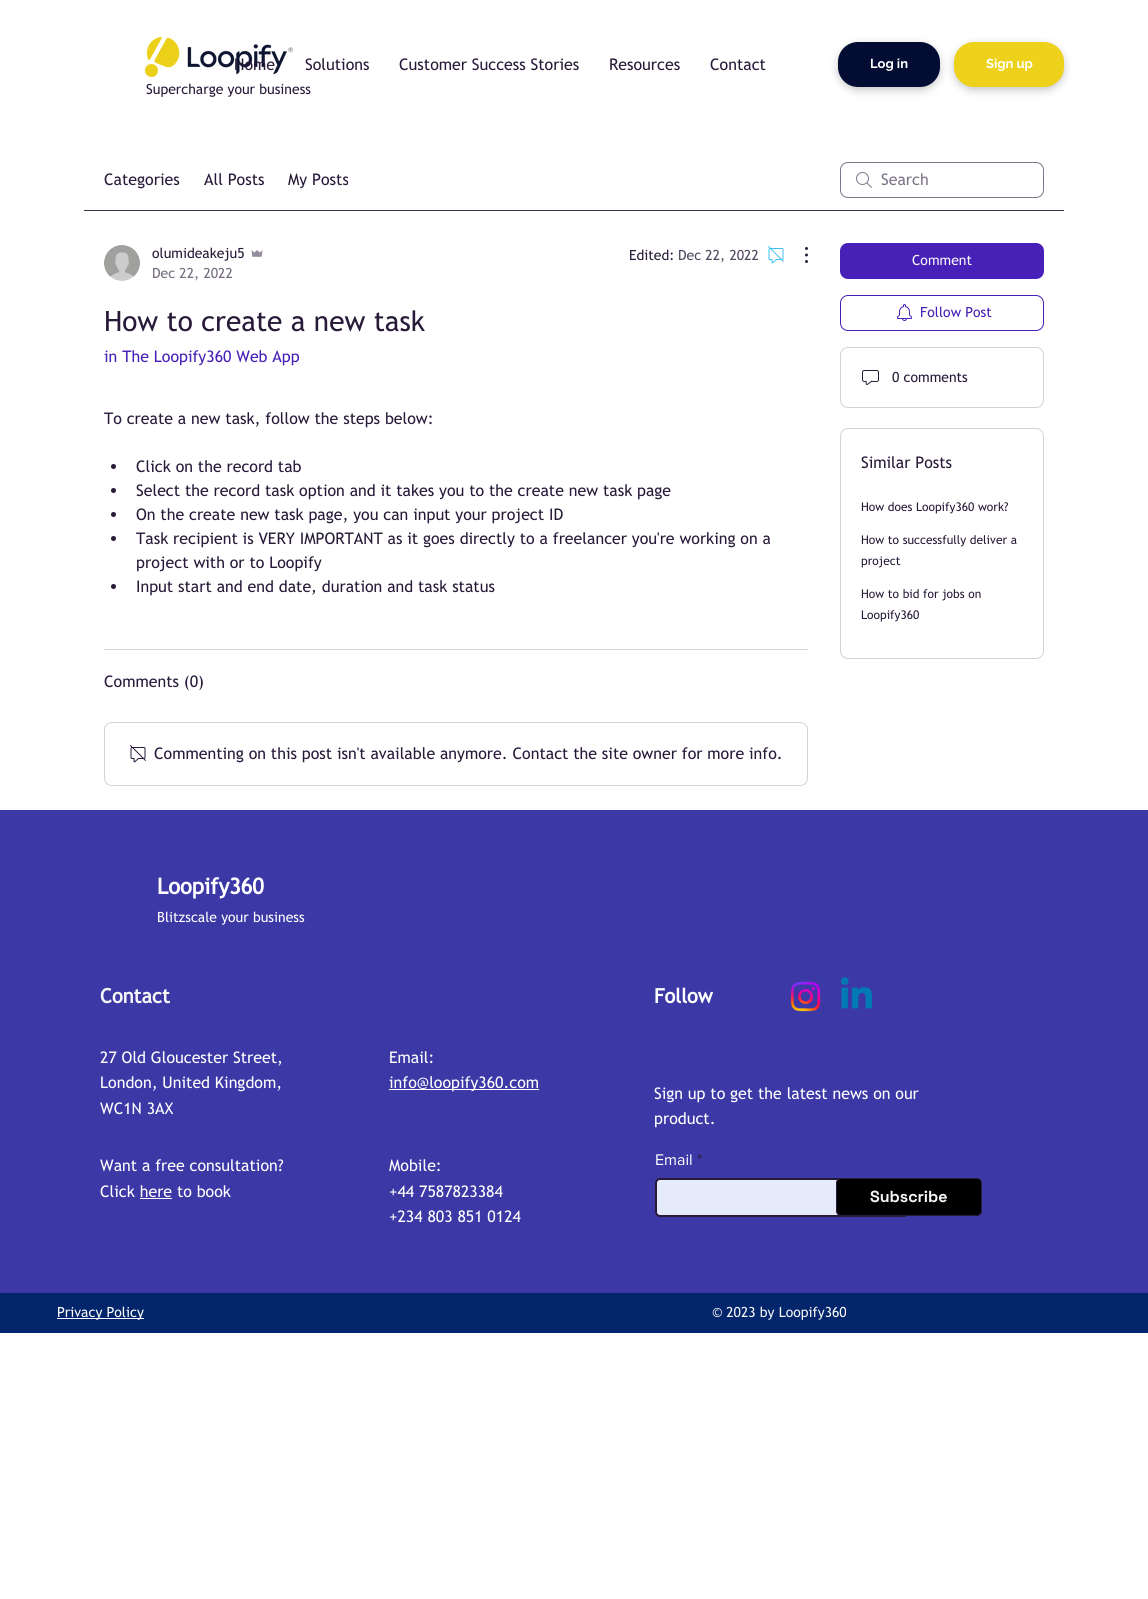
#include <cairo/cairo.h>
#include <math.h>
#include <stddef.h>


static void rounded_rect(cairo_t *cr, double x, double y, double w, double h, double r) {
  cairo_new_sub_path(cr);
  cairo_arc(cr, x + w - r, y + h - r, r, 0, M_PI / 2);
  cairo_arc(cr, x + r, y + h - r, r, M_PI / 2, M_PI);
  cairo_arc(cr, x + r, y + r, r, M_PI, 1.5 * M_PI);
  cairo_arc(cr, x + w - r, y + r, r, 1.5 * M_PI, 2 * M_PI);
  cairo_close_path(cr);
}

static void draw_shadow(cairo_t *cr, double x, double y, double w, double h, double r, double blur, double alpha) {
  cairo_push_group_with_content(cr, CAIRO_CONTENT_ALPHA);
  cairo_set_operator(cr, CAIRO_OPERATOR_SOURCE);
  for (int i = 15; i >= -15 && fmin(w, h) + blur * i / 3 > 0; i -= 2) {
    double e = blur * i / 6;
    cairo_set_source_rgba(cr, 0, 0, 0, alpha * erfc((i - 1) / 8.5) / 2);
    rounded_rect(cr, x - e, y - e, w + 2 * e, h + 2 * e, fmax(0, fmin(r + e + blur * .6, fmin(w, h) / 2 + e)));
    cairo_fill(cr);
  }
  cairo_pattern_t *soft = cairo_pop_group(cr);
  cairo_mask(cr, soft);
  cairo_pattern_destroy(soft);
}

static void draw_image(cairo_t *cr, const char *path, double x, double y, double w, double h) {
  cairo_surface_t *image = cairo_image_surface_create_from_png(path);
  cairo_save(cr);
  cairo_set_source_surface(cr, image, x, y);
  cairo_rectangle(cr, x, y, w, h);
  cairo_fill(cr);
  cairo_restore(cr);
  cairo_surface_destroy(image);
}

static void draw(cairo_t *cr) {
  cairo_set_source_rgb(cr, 1, 1, 1);
  cairo_paint(cr);
  cairo_set_source_rgb(cr, 0, 0, 0);
  draw_shadow(cr, 838, 45, 102, 45, 20, 4.5, 0.23);
  cairo_set_source_rgb(cr, 3 / 255.0, 12 / 255.0, 50 / 255.0);
  rounded_rect(cr, 838, 42, 102, 45, 20);
  cairo_fill(cr);
  cairo_set_source_rgb(cr, 0, 0, 0);
  draw_shadow(cr, 954, 45, 110, 45, 20, 4.5, 0.23);
  cairo_set_source_rgb(cr, 238 / 255.0, 209 / 255.0, 26 / 255.0);
  rounded_rect(cr, 954, 42, 110, 45, 20);
  cairo_fill(cr);
  draw_image(cr, "images/1.png", 145, 37, 148, 40);
  cairo_set_source_rgb(cr, 59 / 255.0, 47 / 255.0, 75 / 255.0);
  cairo_rectangle(cr, 84, 210, 980, 1);
  cairo_fill(cr);
  draw_image(cr, "images/2.png", 856, 172, 16, 16);
  rounded_rect(cr, 840.5, 162.5, 203, 35, 7.5);
  cairo_set_source_rgb(cr, 126 / 255.0, 118 / 255.0, 136 / 255.0);
  cairo_set_line_width(cr, 1);
  cairo_stroke(cr);
  draw_image(cr, "images/3.png", 104, 245, 36, 36);
  draw_image(cr, "images/4.png", 251, 250, 12, 7);
  draw_image(cr, "images/5.png", 768, 246, 16, 18);
  draw_image(cr, "images/6.png", 805, 247, 3, 16);
  cairo_set_source_rgb(cr, 40 / 255.0, 26 / 255.0, 57 / 255.0);
  cairo_arc(cr, 113.5, 466.5, 2.5, 0, 2 * M_PI);
  cairo_fill(cr);
  cairo_arc(cr, 113.5, 490.5, 2.5, 0, 2 * M_PI);
  cairo_fill(cr);
  cairo_arc(cr, 113.5, 514.5, 2.5, 0, 2 * M_PI);
  cairo_fill(cr);
  cairo_arc(cr, 113.5, 538.5, 2.5, 0, 2 * M_PI);
  cairo_fill(cr);
  cairo_arc(cr, 113.5, 586.5, 2.5, 0, 2 * M_PI);
  cairo_fill(cr);
  cairo_set_source_rgb(cr, 212 / 255.0, 209 / 255.0, 215 / 255.0);
  cairo_rectangle(cr, 104, 649, 704, 1);
  cairo_fill(cr);
  rounded_rect(cr, 104.5, 722.5, 703, 63, 7.5);
  cairo_stroke(cr);
  draw_image(cr, "images/7.png", 130, 745, 16, 18);
  cairo_set_source_rgb(cr, 71 / 255.0, 32 / 255.0, 183 / 255.0);
  rounded_rect(cr, 840, 243, 204, 36, 8);
  cairo_fill(cr);
  rounded_rect(cr, 840.5, 295.5, 203, 35, 7.5);
  cairo_stroke(cr);
  draw_image(cr, "images/8.png", 897, 304, 15, 17);
  rounded_rect(cr, 840.5, 347.5, 203, 60, 7.5);
  cairo_set_source_rgb(cr, 212 / 255.0, 209 / 255.0, 215 / 255.0);
  cairo_stroke(cr);
  draw_image(cr, "images/9.png", 862, 370, 17, 15);
  rounded_rect(cr, 840.5, 428.5, 203, 230, 7.5);
  cairo_stroke(cr);
  cairo_set_source_rgb(cr, 60 / 255.0, 57 / 255.0, 166 / 255.0);
  cairo_rectangle(cr, 0, 810, 1148, 483);
  cairo_fill(cr);
  cairo_set_source_rgb(cr, 1, 1, 1);
  cairo_rectangle(cr, 389, 1089, 150, 1);
  cairo_fill(cr);
  cairo_rectangle(cr, 140, 1198, 32, 1);
  cairo_fill(cr);
  draw_image(cr, "images/10.png", 790, 981, 31, 31);
  draw_image(cr, "images/11.png", 840, 977, 33, 32);
  cairo_set_source_rgb(cr, 229 / 255.0, 235 / 255.0, 250 / 255.0);
  rounded_rect(cr, 656, 1179, 252, 37, 4);
  cairo_fill_preserve(cr);
  cairo_set_source_rgb(cr, 40 / 255.0, 26 / 255.0, 57 / 255.0);
  cairo_set_line_width(cr, 2);
  cairo_stroke(cr);
  cairo_set_source_rgb(cr, 0, 0, 0);
  rounded_rect(cr, 836.5, 1178.5, 145, 37, 4.5);
  cairo_fill_preserve(cr);
  cairo_set_source_rgb(cr, 40 / 255.0, 26 / 255.0, 57 / 255.0);
  cairo_set_line_width(cr, 1);
  cairo_stroke(cr);
  cairo_set_source_rgb(cr, 3 / 255.0, 37 / 255.0, 108 / 255.0);
  cairo_rectangle(cr, 0, 1293, 1148, 40);
  cairo_fill(cr);
  cairo_set_source_rgb(cr, 1, 1, 1);
  cairo_rectangle(cr, 57, 1318, 87, 1);
  cairo_fill(cr);
  cairo_select_font_face(cr, "Trebuchet MS", CAIRO_FONT_SLANT_NORMAL, CAIRO_FONT_WEIGHT_NORMAL);
  cairo_set_font_size(cr, 16);
  cairo_set_source_rgb(cr, 40 / 255.0, 26 / 255.0, 57 / 255.0);
  cairo_move_to(cr, 234, 70);
  cairo_show_text(cr, "Home");
  cairo_move_to(cr, 305, 70);
  cairo_show_text(cr, "Solutions");
  cairo_move_to(cr, 399, 70);
  cairo_show_text(cr, "Customer Success Stories");
  cairo_move_to(cr, 609, 70);
  cairo_show_text(cr, "Resources");
  cairo_move_to(cr, 710, 70);
  cairo_show_text(cr, "Contact");
  cairo_select_font_face(cr, "Raleway", CAIRO_FONT_SLANT_NORMAL, CAIRO_FONT_WEIGHT_BOLD);
  cairo_set_font_size(cr, 13);
  cairo_set_source_rgb(cr, 1, 1, 1);
  cairo_move_to(cr, 870, 68);
  cairo_show_text(cr, "Log in");
  cairo_move_to(cr, 986, 68);
  cairo_show_text(cr, "Sign up");
  cairo_select_font_face(cr, "Trebuchet MS", CAIRO_FONT_SLANT_NORMAL, CAIRO_FONT_WEIGHT_NORMAL);
  cairo_set_font_size(cr, 14);
  cairo_set_source_rgb(cr, 40 / 255.0, 26 / 255.0, 57 / 255.0);
  cairo_move_to(cr, 146, 94);
  cairo_show_text(cr, "Supercharge your business");
  cairo_set_font_size(cr, 16);
  cairo_move_to(cr, 104, 185);
  cairo_show_text(cr, "Categories");
  cairo_move_to(cr, 204, 185);
  cairo_show_text(cr, "All Posts");
  cairo_move_to(cr, 288, 185);
  cairo_show_text(cr, "My Posts");
  cairo_set_source_rgb(cr, 126 / 255.0, 118 / 255.0, 136 / 255.0);
  cairo_move_to(cr, 881, 185);
  cairo_show_text(cr, "Search");
  cairo_set_font_size(cr, 14);
  cairo_set_source_rgb(cr, 40 / 255.0, 26 / 255.0, 57 / 255.0);
  cairo_move_to(cr, 152, 258);
  cairo_show_text(cr, "olumideakeju5");
  cairo_set_source_rgb(cr, 117 / 255.0, 108 / 255.0, 128 / 255.0);
  cairo_move_to(cr, 152, 278);
  cairo_show_text(cr, "Dec 22, 2022");
  cairo_set_source_rgb(cr, 40 / 255.0, 26 / 255.0, 57 / 255.0);
  cairo_move_to(cr, 629, 260);
  cairo_show_text(cr, "Edited:");
  cairo_set_source_rgb(cr, 83 / 255.0, 72 / 255.0, 97 / 255.0);
  cairo_move_to(cr, 678, 260);
  cairo_show_text(cr, "Dec 22, 2022");
  cairo_set_font_size(cr, 28);
  cairo_set_source_rgb(cr, 40 / 255.0, 26 / 255.0, 57 / 255.0);
  cairo_move_to(cr, 104, 331);
  cairo_show_text(cr, "How to create a new task");
  cairo_set_font_size(cr, 16);
  cairo_set_source_rgb(cr, 71 / 255.0, 32 / 255.0, 183 / 255.0);
  cairo_move_to(cr, 104, 362);
  cairo_show_text(cr, "in The Loopify360 Web App");
  cairo_set_source_rgb(cr, 40 / 255.0, 26 / 255.0, 57 / 255.0);
  cairo_move_to(cr, 104, 424);
  cairo_show_text(cr, "To create a new task, follow the steps below:");
  cairo_move_to(cr, 136, 472);
  cairo_show_text(cr, "Click on the record tab");
  cairo_move_to(cr, 136, 496);
  cairo_show_text(cr, "Select the record task option and it takes you to the create new task page");
  cairo_move_to(cr, 136, 520);
  cairo_show_text(cr, "On the create new task page, you can input your project ID");
  cairo_move_to(cr, 136, 544);
  cairo_show_text(cr, "Task recipient is VERY IMPORTANT as it goes directly to a freelancer you're working on a");
  cairo_move_to(cr, 136, 568);
  cairo_show_text(cr, "project with or to Loopify");
  cairo_move_to(cr, 136, 592);
  cairo_show_text(cr, "Input start and end date, duration and task status");
  cairo_move_to(cr, 104, 687);
  cairo_show_text(cr, "Comments (0)");
  cairo_move_to(cr, 154, 759);
  cairo_show_text(cr, "Commenting on this post isn't available anymore. Contact the site owner for more info.");
  cairo_set_font_size(cr, 14);
  cairo_set_source_rgb(cr, 246 / 255.0, 246 / 255.0, 246 / 255.0);
  cairo_move_to(cr, 912, 265);
  cairo_show_text(cr, "Comment");
  cairo_set_source_rgb(cr, 71 / 255.0, 32 / 255.0, 183 / 255.0);
  cairo_move_to(cr, 920, 317);
  cairo_show_text(cr, "Follow Post");
  cairo_set_source_rgb(cr, 40 / 255.0, 26 / 255.0, 57 / 255.0);
  cairo_move_to(cr, 892, 382);
  cairo_show_text(cr, "0 comments");
  cairo_set_font_size(cr, 16);
  cairo_move_to(cr, 861, 468);
  cairo_show_text(cr, "Similar Posts");
  cairo_set_font_size(cr, 12);
  cairo_move_to(cr, 861, 511);
  cairo_show_text(cr, "How does Loopify360 work?");
  cairo_move_to(cr, 861, 544);
  cairo_show_text(cr, "How to successfully deliver a");
  cairo_move_to(cr, 861, 565);
  cairo_show_text(cr, "project");
  cairo_move_to(cr, 861, 598);
  cairo_show_text(cr, "How to bid for jobs on");
  cairo_move_to(cr, 861, 619);
  cairo_show_text(cr, "Loopify360");
  cairo_select_font_face(cr, "Trebuchet MS", CAIRO_FONT_SLANT_NORMAL, CAIRO_FONT_WEIGHT_BOLD);
  cairo_set_font_size(cr, 22);
  cairo_set_source_rgb(cr, 1, 1, 1);
  cairo_move_to(cr, 157, 894);
  cairo_show_text(cr, "Loopify360");
  cairo_select_font_face(cr, "Trebuchet MS", CAIRO_FONT_SLANT_NORMAL, CAIRO_FONT_WEIGHT_NORMAL);
  cairo_set_font_size(cr, 14);
  cairo_move_to(cr, 157, 922);
  cairo_show_text(cr, "Blitzscale your business");
  cairo_select_font_face(cr, "Trebuchet MS", CAIRO_FONT_SLANT_NORMAL, CAIRO_FONT_WEIGHT_BOLD);
  cairo_set_font_size(cr, 20);
  cairo_set_source_rgb(cr, 246 / 255.0, 246 / 255.0, 246 / 255.0);
  cairo_move_to(cr, 100, 1003);
  cairo_show_text(cr, "Contact");
  cairo_select_font_face(cr, "Trebuchet MS", CAIRO_FONT_SLANT_NORMAL, CAIRO_FONT_WEIGHT_NORMAL);
  cairo_set_font_size(cr, 16);
  cairo_set_source_rgb(cr, 1, 1, 1);
  cairo_move_to(cr, 100, 1063);
  cairo_show_text(cr, "27 Old Gloucester Street,");
  cairo_move_to(cr, 100, 1088);
  cairo_show_text(cr, "London, United Kingdom,");
  cairo_move_to(cr, 100, 1114);
  cairo_show_text(cr, "WC1N 3AX");
  cairo_move_to(cr, 389, 1063);
  cairo_show_text(cr, "Email:");
  cairo_move_to(cr, 389, 1088);
  cairo_show_text(cr, "info@loopify360.com");
  cairo_move_to(cr, 100, 1171);
  cairo_show_text(cr, "Want a free consultation?");
  cairo_move_to(cr, 100, 1197);
  cairo_show_text(cr, "Click here to book");
  cairo_move_to(cr, 389, 1171);
  cairo_show_text(cr, "Mobile:");
  cairo_move_to(cr, 389, 1197);
  cairo_show_text(cr, "+44 7587823384");
  cairo_move_to(cr, 389, 1222);
  cairo_show_text(cr, "+234 803 851 0124");
  cairo_select_font_face(cr, "Trebuchet MS", CAIRO_FONT_SLANT_NORMAL, CAIRO_FONT_WEIGHT_BOLD);
  cairo_set_font_size(cr, 20);
  cairo_move_to(cr, 654, 1003);
  cairo_show_text(cr, "Follow");
  cairo_select_font_face(cr, "Trebuchet MS", CAIRO_FONT_SLANT_NORMAL, CAIRO_FONT_WEIGHT_NORMAL);
  cairo_set_font_size(cr, 16);
  cairo_move_to(cr, 654, 1099);
  cairo_show_text(cr, "Sign up to get the latest news on our");
  cairo_move_to(cr, 654, 1124);
  cairo_show_text(cr, "product.");
  cairo_select_font_face(cr, "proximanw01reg", CAIRO_FONT_SLANT_NORMAL, CAIRO_FONT_WEIGHT_NORMAL);
  cairo_move_to(cr, 655, 1165);
  cairo_show_text(cr, "Email");
  cairo_set_source_rgb(cr, 40 / 255.0, 26 / 255.0, 57 / 255.0);
  cairo_move_to(cr, 697, 1165);
  cairo_show_text(cr, "*");
  cairo_select_font_face(cr, "Space Grotesk", CAIRO_FONT_SLANT_NORMAL, CAIRO_FONT_WEIGHT_BOLD);
  cairo_set_source_rgb(cr, 246 / 255.0, 246 / 255.0, 246 / 255.0);
  cairo_move_to(cr, 870, 1202);
  cairo_show_text(cr, "Subscribe");
  cairo_select_font_face(cr, "Trebuchet MS", CAIRO_FONT_SLANT_NORMAL, CAIRO_FONT_WEIGHT_NORMAL);
  cairo_set_font_size(cr, 14);
  cairo_set_source_rgb(cr, 1, 1, 1);
  cairo_move_to(cr, 57, 1317);
  cairo_show_text(cr, "Privacy Policy");
  cairo_set_source_rgb(cr, 246 / 255.0, 246 / 255.0, 246 / 255.0);
  cairo_move_to(cr, 712, 1317);
  cairo_show_text(cr, "© 2023 by Loopify360");
}

int main(void) {
  cairo_surface_t *surface = cairo_image_surface_create(CAIRO_FORMAT_RGB24, 1148, 1599);
  cairo_t *cr = cairo_create(surface);
  cairo_font_options_t *options = cairo_font_options_create();
  cairo_font_options_set_hint_metrics(options, CAIRO_HINT_METRICS_OFF);
  cairo_font_options_set_hint_style(options, CAIRO_HINT_STYLE_NONE);
  cairo_set_font_options(cr, options);
  cairo_set_miter_limit(cr, 4);
  draw(cr);
  cairo_surface_write_to_png(surface, "out.png");
  cairo_font_options_destroy(options);
  cairo_destroy(cr);
  cairo_surface_destroy(surface);
  return 0;
}
